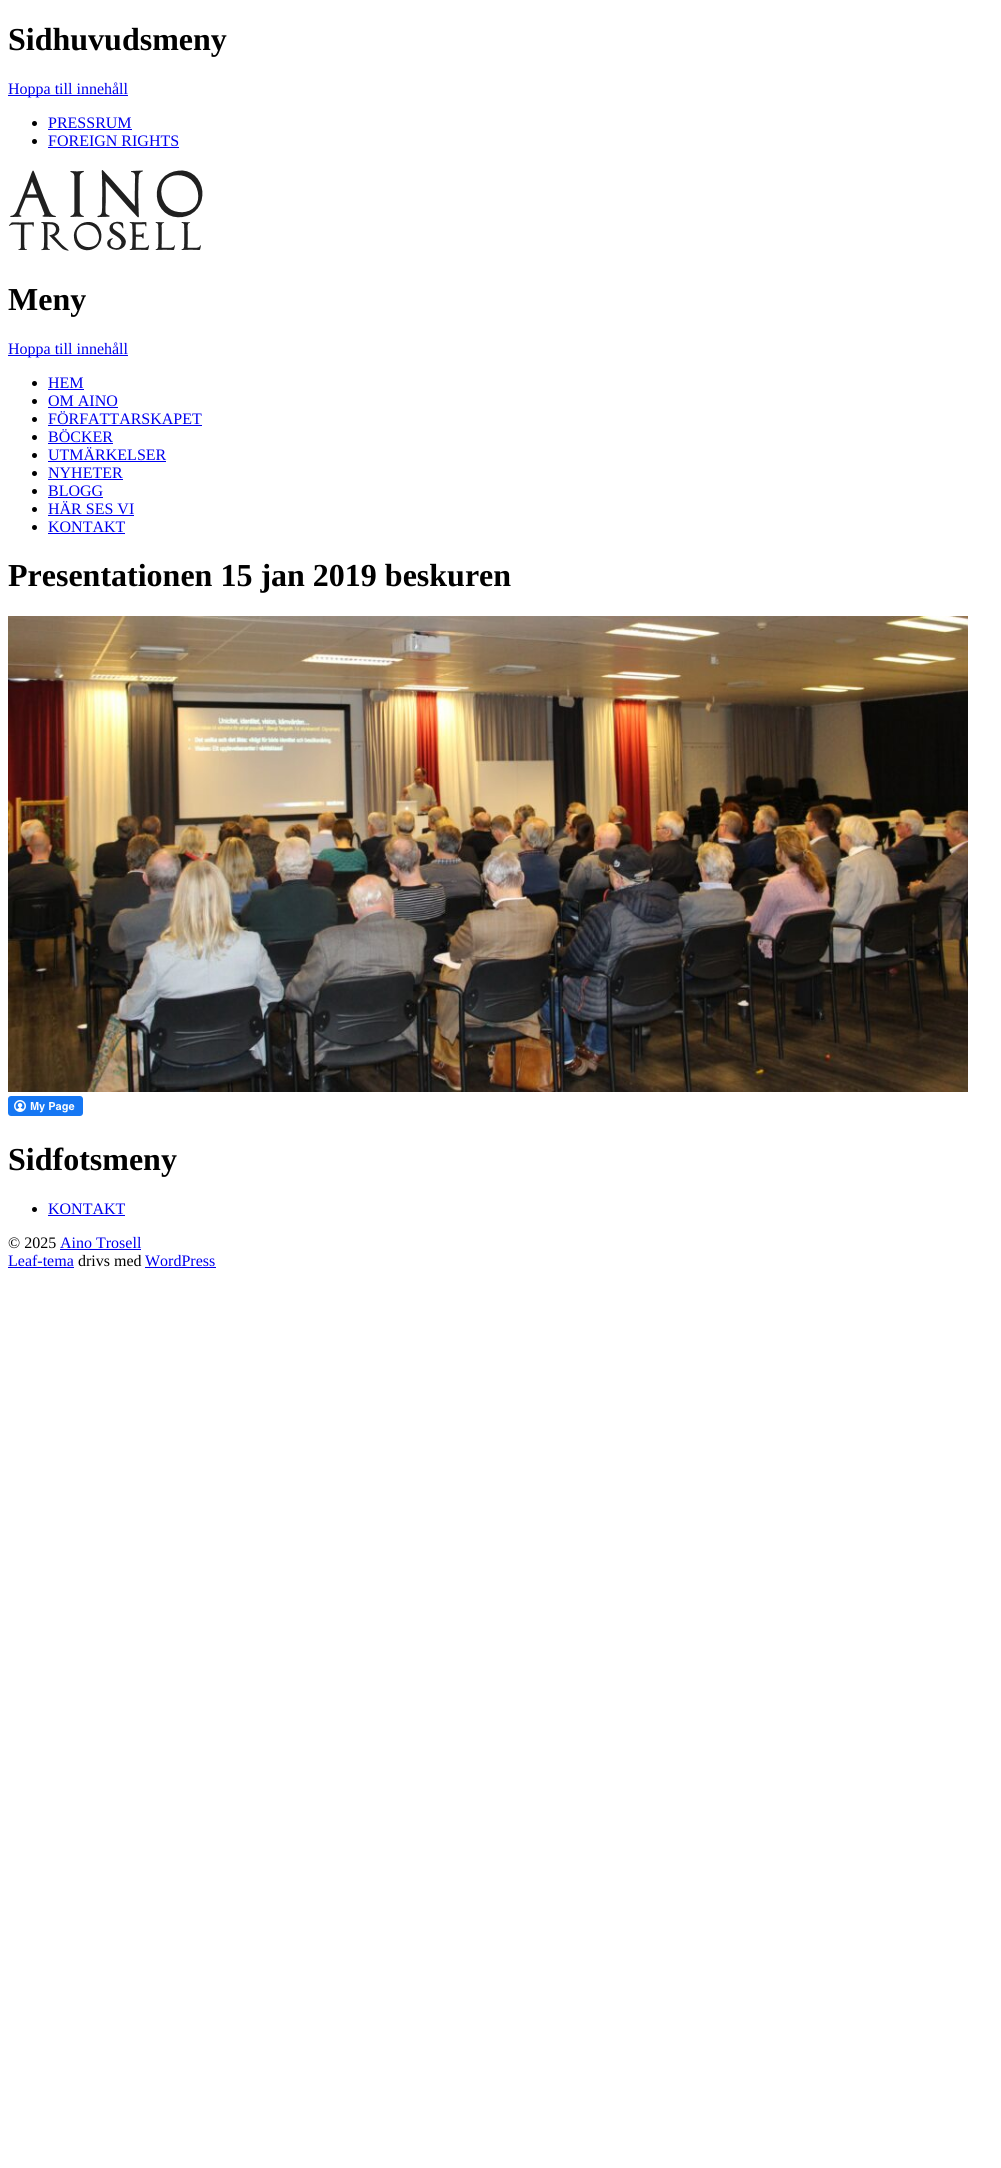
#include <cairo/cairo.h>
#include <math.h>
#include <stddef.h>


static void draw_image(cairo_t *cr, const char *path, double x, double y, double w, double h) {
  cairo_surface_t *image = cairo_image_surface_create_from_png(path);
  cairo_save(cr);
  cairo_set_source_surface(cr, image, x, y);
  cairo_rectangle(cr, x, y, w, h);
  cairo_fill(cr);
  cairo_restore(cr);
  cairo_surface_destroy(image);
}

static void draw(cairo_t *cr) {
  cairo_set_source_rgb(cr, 1, 1, 1);
  cairo_paint(cr);
  cairo_set_source_rgb(cr, 0, 0, 238 / 255.0);
  cairo_rectangle(cr, 8, 95, 120, 1);
  cairo_fill(cr);
  cairo_set_source_rgb(cr, 0, 0, 0);
  cairo_arc(cr, 34.5, 123.5, 2.5, 0, 2 * M_PI);
  cairo_fill(cr);
  cairo_set_source_rgb(cr, 0, 0, 238 / 255.0);
  cairo_rectangle(cr, 48, 129, 84, 1);
  cairo_fill(cr);
  cairo_set_source_rgb(cr, 0, 0, 0);
  cairo_arc(cr, 34.5, 141.5, 2.5, 0, 2 * M_PI);
  cairo_fill(cr);
  cairo_set_source_rgb(cr, 0, 0, 238 / 255.0);
  cairo_rectangle(cr, 48, 147, 131, 1);
  cairo_fill(cr);
  draw_image(cr, "images/1.png", 8, 170, 195, 81);
  cairo_rectangle(cr, 8, 355, 120, 1);
  cairo_fill(cr);
  cairo_set_source_rgb(cr, 0, 0, 0);
  cairo_arc(cr, 34.5, 383.5, 2.5, 0, 2 * M_PI);
  cairo_fill(cr);
  cairo_set_source_rgb(cr, 0, 0, 238 / 255.0);
  cairo_rectangle(cr, 48, 389, 36, 1);
  cairo_fill(cr);
  cairo_set_source_rgb(cr, 0, 0, 0);
  cairo_arc(cr, 34.5, 401.5, 2.5, 0, 2 * M_PI);
  cairo_fill(cr);
  cairo_set_source_rgb(cr, 0, 0, 238 / 255.0);
  cairo_rectangle(cr, 48, 407, 70, 1);
  cairo_fill(cr);
  cairo_set_source_rgb(cr, 0, 0, 0);
  cairo_arc(cr, 34.5, 419.5, 2.5, 0, 2 * M_PI);
  cairo_fill(cr);
  cairo_set_source_rgb(cr, 0, 0, 238 / 255.0);
  cairo_rectangle(cr, 48, 425, 154, 1);
  cairo_fill(cr);
  cairo_set_source_rgb(cr, 0, 0, 0);
  cairo_arc(cr, 34.5, 437.5, 2.5, 0, 2 * M_PI);
  cairo_fill(cr);
  cairo_set_source_rgb(cr, 0, 0, 238 / 255.0);
  cairo_rectangle(cr, 48, 443, 65, 1);
  cairo_fill(cr);
  cairo_set_source_rgb(cr, 0, 0, 0);
  cairo_arc(cr, 34.5, 455.5, 2.5, 0, 2 * M_PI);
  cairo_fill(cr);
  cairo_set_source_rgb(cr, 0, 0, 238 / 255.0);
  cairo_rectangle(cr, 48, 461, 118, 1);
  cairo_fill(cr);
  cairo_set_source_rgb(cr, 0, 0, 0);
  cairo_arc(cr, 34.5, 473.5, 2.5, 0, 2 * M_PI);
  cairo_fill(cr);
  cairo_set_source_rgb(cr, 0, 0, 238 / 255.0);
  cairo_rectangle(cr, 48, 479, 75, 1);
  cairo_fill(cr);
  cairo_set_source_rgb(cr, 0, 0, 0);
  cairo_arc(cr, 34.5, 491.5, 2.5, 0, 2 * M_PI);
  cairo_fill(cr);
  cairo_set_source_rgb(cr, 0, 0, 238 / 255.0);
  cairo_rectangle(cr, 48, 497, 55, 1);
  cairo_fill(cr);
  cairo_set_source_rgb(cr, 0, 0, 0);
  cairo_arc(cr, 34.5, 509.5, 2.5, 0, 2 * M_PI);
  cairo_fill(cr);
  cairo_set_source_rgb(cr, 0, 0, 238 / 255.0);
  cairo_rectangle(cr, 48, 515, 86, 1);
  cairo_fill(cr);
  cairo_set_source_rgb(cr, 0, 0, 0);
  cairo_arc(cr, 34.5, 527.5, 2.5, 0, 2 * M_PI);
  cairo_fill(cr);
  cairo_set_source_rgb(cr, 0, 0, 238 / 255.0);
  cairo_rectangle(cr, 48, 533, 77, 1);
  cairo_fill(cr);
  draw_image(cr, "images/2.png", 8, 616, 960, 476);
  draw_image(cr, "images/3.png", 8, 1096, 75, 20);
  cairo_set_source_rgb(cr, 0, 0, 0);
  cairo_arc(cr, 34.5, 1209.5, 2.5, 0, 2 * M_PI);
  cairo_fill(cr);
  cairo_set_source_rgb(cr, 0, 0, 238 / 255.0);
  cairo_rectangle(cr, 48, 1215, 77, 1);
  cairo_fill(cr);
  cairo_rectangle(cr, 60, 1249, 81, 1);
  cairo_fill(cr);
  cairo_rectangle(cr, 8, 1267, 66, 1);
  cairo_fill(cr);
  cairo_rectangle(cr, 145, 1267, 71, 1);
  cairo_fill(cr);
  cairo_select_font_face(cr, "Liberation Serif", CAIRO_FONT_SLANT_NORMAL, CAIRO_FONT_WEIGHT_BOLD);
  cairo_set_font_size(cr, 32);
  cairo_set_source_rgb(cr, 0, 0, 0);
  cairo_move_to(cr, 8, 50);
  cairo_show_text(cr, "Sidhuvudsmeny");
  cairo_select_font_face(cr, "Liberation Serif", CAIRO_FONT_SLANT_NORMAL, CAIRO_FONT_WEIGHT_NORMAL);
  cairo_set_font_size(cr, 16);
  cairo_set_source_rgb(cr, 0, 0, 238 / 255.0);
  cairo_move_to(cr, 8, 94);
  cairo_show_text(cr, "Hoppa till innehåll");
  cairo_move_to(cr, 48, 128);
  cairo_show_text(cr, "PRESSRUM");
  cairo_move_to(cr, 48, 146);
  cairo_show_text(cr, "FOREIGN RIGHTS");
  cairo_select_font_face(cr, "Liberation Serif", CAIRO_FONT_SLANT_NORMAL, CAIRO_FONT_WEIGHT_BOLD);
  cairo_set_font_size(cr, 32);
  cairo_set_source_rgb(cr, 0, 0, 0);
  cairo_move_to(cr, 8, 310);
  cairo_show_text(cr, "Meny");
  cairo_select_font_face(cr, "Liberation Serif", CAIRO_FONT_SLANT_NORMAL, CAIRO_FONT_WEIGHT_NORMAL);
  cairo_set_font_size(cr, 16);
  cairo_set_source_rgb(cr, 0, 0, 238 / 255.0);
  cairo_move_to(cr, 8, 354);
  cairo_show_text(cr, "Hoppa till innehåll");
  cairo_move_to(cr, 48, 388);
  cairo_show_text(cr, "HEM");
  cairo_move_to(cr, 48, 406);
  cairo_show_text(cr, "OM AINO");
  cairo_move_to(cr, 48, 424);
  cairo_show_text(cr, "FÖRFATTARSKAPET");
  cairo_move_to(cr, 48, 442);
  cairo_show_text(cr, "BÖCKER");
  cairo_move_to(cr, 48, 460);
  cairo_show_text(cr, "UTMÄRKELSER");
  cairo_move_to(cr, 48, 478);
  cairo_show_text(cr, "NYHETER");
  cairo_move_to(cr, 48, 496);
  cairo_show_text(cr, "BLOGG");
  cairo_move_to(cr, 48, 514);
  cairo_show_text(cr, "HÄR SES VI");
  cairo_move_to(cr, 48, 532);
  cairo_show_text(cr, "KONTAKT");
  cairo_select_font_face(cr, "Liberation Serif", CAIRO_FONT_SLANT_NORMAL, CAIRO_FONT_WEIGHT_BOLD);
  cairo_set_font_size(cr, 32);
  cairo_set_source_rgb(cr, 0, 0, 0);
  cairo_move_to(cr, 8, 586);
  cairo_show_text(cr, "Presentationen 15 jan 2019 beskuren");
  cairo_move_to(cr, 8, 1170);
  cairo_show_text(cr, "Sidfotsmeny");
  cairo_select_font_face(cr, "Liberation Serif", CAIRO_FONT_SLANT_NORMAL, CAIRO_FONT_WEIGHT_NORMAL);
  cairo_set_font_size(cr, 16);
  cairo_set_source_rgb(cr, 0, 0, 238 / 255.0);
  cairo_move_to(cr, 48, 1214);
  cairo_show_text(cr, "KONTAKT");
  cairo_set_source_rgb(cr, 0, 0, 0);
  cairo_move_to(cr, 8, 1248);
  cairo_show_text(cr, "© 2025");
  cairo_set_source_rgb(cr, 0, 0, 238 / 255.0);
  cairo_move_to(cr, 60, 1248);
  cairo_show_text(cr, "Aino Trosell");
  cairo_move_to(cr, 8, 1266);
  cairo_show_text(cr, "Leaf-tema");
  cairo_set_source_rgb(cr, 0, 0, 0);
  cairo_move_to(cr, 78, 1266);
  cairo_show_text(cr, "drivs med");
  cairo_set_source_rgb(cr, 0, 0, 238 / 255.0);
  cairo_move_to(cr, 145, 1266);
  cairo_show_text(cr, "WordPress");
}

int main(void) {
  cairo_surface_t *surface = cairo_image_surface_create(CAIRO_FORMAT_RGB24, 1001, 2168);
  cairo_t *cr = cairo_create(surface);
  cairo_font_options_t *options = cairo_font_options_create();
  cairo_font_options_set_hint_metrics(options, CAIRO_HINT_METRICS_OFF);
  cairo_font_options_set_hint_style(options, CAIRO_HINT_STYLE_NONE);
  cairo_set_font_options(cr, options);
  cairo_set_miter_limit(cr, 4);
  draw(cr);
  cairo_surface_write_to_png(surface, "out.png");
  cairo_font_options_destroy(options);
  cairo_destroy(cr);
  cairo_surface_destroy(surface);
  return 0;
}
